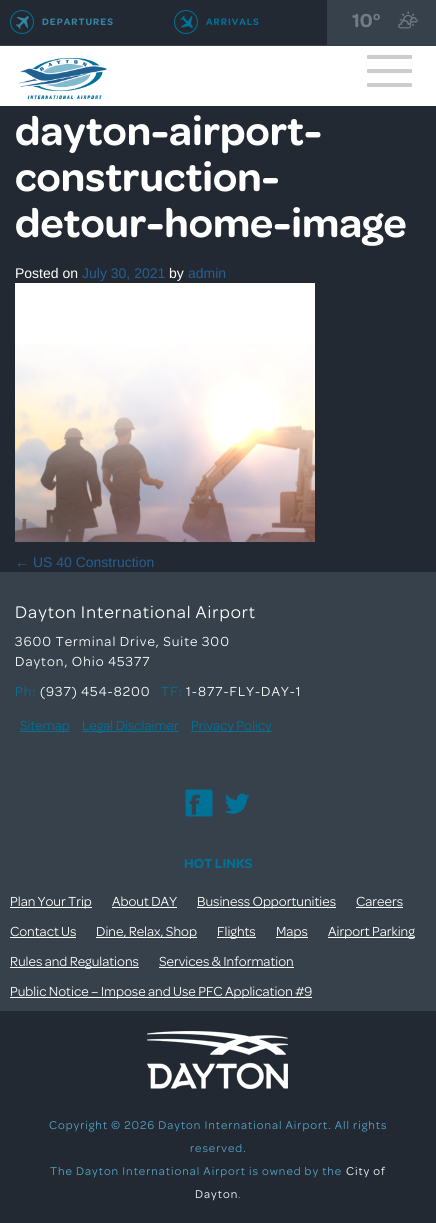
#include <cairo/cairo.h>
#include <math.h>
#include <stddef.h>


static void draw_spaced(cairo_t *cr, double x, double y, const char *s, double letter, double word) {
  cairo_move_to(cr, x, y);
  while (*s) {
    char ch[5] = {0};
    int n = 0;
    do ch[n++] = *s++; while ((*s & 0xC0) == 0x80);
    cairo_show_text(cr, ch);
    cairo_rel_move_to(cr, letter + word * (*ch == ' '), 0);
  }
}

static void rounded_rect(cairo_t *cr, double x, double y, double w, double h, double r) {
  cairo_new_sub_path(cr);
  cairo_arc(cr, x + w - r, y + h - r, r, 0, M_PI / 2);
  cairo_arc(cr, x + r, y + h - r, r, M_PI / 2, M_PI);
  cairo_arc(cr, x + r, y + r, r, M_PI, 1.5 * M_PI);
  cairo_arc(cr, x + w - r, y + r, r, 1.5 * M_PI, 2 * M_PI);
  cairo_close_path(cr);
}

static void draw_image(cairo_t *cr, const char *path, double x, double y, double w, double h) {
  cairo_surface_t *image = cairo_image_surface_create_from_png(path);
  cairo_save(cr);
  cairo_set_source_surface(cr, image, x, y);
  cairo_rectangle(cr, x, y, w, h);
  cairo_fill(cr);
  cairo_restore(cr);
  cairo_surface_destroy(image);
}

static void draw(cairo_t *cr) {
  cairo_set_source_rgb(cr, 34 / 255.0, 41 / 255.0, 50 / 255.0);
  cairo_paint(cr);
  cairo_set_source_rgb(cr, 54 / 255.0, 65 / 255.0, 75 / 255.0);
  cairo_rectangle(cr, 0, 0, 436, 46);
  cairo_fill(cr);
  cairo_set_source_rgb(cr, 34 / 255.0, 41 / 255.0, 50 / 255.0);
  cairo_rectangle(cr, 0, 0, 327, 45);
  cairo_fill(cr);
  cairo_arc(cr, 22, 22, 11.5, 0, 2 * M_PI);
  cairo_set_source_rgb(cr, 0, 114 / 255.0, 152 / 255.0);
  cairo_set_line_width(cr, 1);
  cairo_stroke(cr);
  draw_image(cr, "images/1.png", 16, 16, 13, 14);
  cairo_arc(cr, 186, 22, 11.5, 0, 2 * M_PI);
  cairo_stroke(cr);
  draw_image(cr, "images/2.png", 180, 15, 13, 13);
  draw_image(cr, "images/3.png", 398, 11, 20, 18);
  cairo_set_source_rgb(cr, 1, 1, 1);
  cairo_rectangle(cr, 0, 46, 436, 60);
  cairo_fill(cr);
  draw_image(cr, "images/4.png", 19, 57, 88, 43);
  cairo_set_source_rgb(cr, 204 / 255.0, 204 / 255.0, 204 / 255.0);
  rounded_rect(cr, 367, 55, 45, 4, 1);
  cairo_fill(cr);
  rounded_rect(cr, 367, 69, 45, 4, 1);
  cairo_fill(cr);
  rounded_rect(cr, 367, 83, 45, 4, 1);
  cairo_fill(cr);
  draw_image(cr, "images/5.png", 15, 283, 300, 259);
  cairo_set_source_rgb(cr, 54 / 255.0, 65 / 255.0, 75 / 255.0);
  cairo_rectangle(cr, 0, 572, 436, 439);
  cairo_fill(cr);
  cairo_set_source_rgb(cr, 0, 114 / 255.0, 152 / 255.0);
  cairo_rectangle(cr, 20, 731, 50, 1);
  cairo_fill(cr);
  cairo_rectangle(cr, 82, 731, 97, 1);
  cairo_fill(cr);
  cairo_rectangle(cr, 191, 731, 81, 1);
  cairo_fill(cr);
  draw_image(cr, "images/6.png", 185, 789, 28, 28);
  draw_image(cr, "images/7.png", 225, 793, 25, 21);
  cairo_set_source_rgb(cr, 1, 1, 1);
  cairo_rectangle(cr, 10, 907, 82, 1);
  cairo_fill(cr);
  cairo_rectangle(cr, 112, 907, 65, 1);
  cairo_fill(cr);
  cairo_rectangle(cr, 197, 907, 139, 1);
  cairo_fill(cr);
  cairo_rectangle(cr, 356, 907, 47, 1);
  cairo_fill(cr);
  cairo_rectangle(cr, 10, 937, 66, 1);
  cairo_fill(cr);
  cairo_rectangle(cr, 96, 937, 101, 1);
  cairo_fill(cr);
  cairo_rectangle(cr, 217, 937, 39, 1);
  cairo_fill(cr);
  cairo_rectangle(cr, 276, 937, 32, 1);
  cairo_fill(cr);
  cairo_rectangle(cr, 328, 937, 87, 1);
  cairo_fill(cr);
  cairo_rectangle(cr, 10, 967, 129, 1);
  cairo_fill(cr);
  cairo_rectangle(cr, 159, 967, 135, 1);
  cairo_fill(cr);
  cairo_rectangle(cr, 10, 997, 302, 1);
  cairo_fill(cr);
  draw_image(cr, "images/8.png", 147, 1031, 141, 58);
  cairo_select_font_face(cr, "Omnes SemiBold", CAIRO_FONT_SLANT_NORMAL, CAIRO_FONT_WEIGHT_NORMAL);
  cairo_set_font_size(cr, 10);
  cairo_set_source_rgb(cr, 52 / 255.0, 134 / 255.0, 164 / 255.0);
  draw_spaced(cr, 42, 25, "DEPARTURES", 1, 0);
  cairo_set_source_rgb(cr, 0, 114 / 255.0, 152 / 255.0);
  draw_spaced(cr, 206, 25, "ARRIVALS", 1, 0);
  cairo_set_font_size(cr, 20);
  cairo_set_source_rgb(cr, 115 / 255.0, 124 / 255.0, 130 / 255.0);
  cairo_move_to(cr, 352, 27);
  cairo_show_text(cr, "10°");
  cairo_set_font_size(cr, 42);
  cairo_set_source_rgb(cr, 1, 1, 1);
  cairo_move_to(cr, 15, 145);
  cairo_show_text(cr, "dayton-airport-");
  cairo_move_to(cr, 15, 191);
  cairo_show_text(cr, "construction-");
  cairo_move_to(cr, 15, 237);
  cairo_show_text(cr, "detour-home-image");
  cairo_select_font_face(cr, "Liberation Sans", CAIRO_FONT_SLANT_NORMAL, CAIRO_FONT_WEIGHT_NORMAL);
  cairo_set_font_size(cr, 14);
  cairo_move_to(cr, 15, 278);
  cairo_show_text(cr, "Posted on");
  cairo_set_source_rgb(cr, 38 / 255.0, 95 / 255.0, 146 / 255.0);
  cairo_move_to(cr, 82, 278);
  cairo_show_text(cr, "July 30, 2021");
  cairo_set_source_rgb(cr, 1, 1, 1);
  cairo_move_to(cr, 169, 278);
  cairo_show_text(cr, "by");
  cairo_set_source_rgb(cr, 38 / 255.0, 95 / 255.0, 146 / 255.0);
  cairo_move_to(cr, 188, 278);
  cairo_show_text(cr, "admin");
  cairo_move_to(cr, 15, 567);
  cairo_show_text(cr, "← US 40 Construction");
  cairo_select_font_face(cr, "Omnes", CAIRO_FONT_SLANT_NORMAL, CAIRO_FONT_WEIGHT_NORMAL);
  cairo_set_font_size(cr, 18);
  cairo_set_source_rgb(cr, 1, 1, 1);
  draw_spaced(cr, 15, 618, "Dayton International Airport", 1, 0);
  cairo_set_font_size(cr, 14);
  draw_spaced(cr, 15, 646, "3600 Terminal Drive, Suite 300", 1, 0);
  draw_spaced(cr, 15, 666, "Dayton, Ohio 45377", 1, 0);
  cairo_set_source_rgb(cr, 0, 114 / 255.0, 152 / 255.0);
  draw_spaced(cr, 15, 696, "Ph:", 1, 0);
  cairo_set_source_rgb(cr, 1, 1, 1);
  draw_spaced(cr, 40, 696, "(937) 454-8200", 1, 0);
  cairo_set_source_rgb(cr, 0, 114 / 255.0, 152 / 255.0);
  draw_spaced(cr, 161, 696, "TF:", 1, 0);
  cairo_set_source_rgb(cr, 1, 1, 1);
  draw_spaced(cr, 186, 696, "1-877-FLY-DAY-1", 1, 0);
  cairo_set_source_rgb(cr, 0, 114 / 255.0, 152 / 255.0);
  cairo_move_to(cr, 20, 730);
  cairo_show_text(cr, "Sitemap");
  cairo_move_to(cr, 82, 730);
  cairo_show_text(cr, "Legal Disclaimer");
  cairo_move_to(cr, 191, 730);
  cairo_show_text(cr, "Privacy Policy");
  cairo_select_font_face(cr, "Omnes SemiBold", CAIRO_FONT_SLANT_NORMAL, CAIRO_FONT_WEIGHT_NORMAL);
  cairo_move_to(cr, 184, 868);
  cairo_show_text(cr, "HOT LINKS");
  cairo_select_font_face(cr, "Omnes", CAIRO_FONT_SLANT_NORMAL, CAIRO_FONT_WEIGHT_NORMAL);
  cairo_set_source_rgb(cr, 1, 1, 1);
  cairo_move_to(cr, 10, 906);
  cairo_show_text(cr, "Plan Your Trip");
  cairo_move_to(cr, 112, 906);
  cairo_show_text(cr, "About DAY");
  cairo_move_to(cr, 197, 906);
  cairo_show_text(cr, "Business Opportunities");
  cairo_move_to(cr, 356, 906);
  cairo_show_text(cr, "Careers");
  cairo_move_to(cr, 10, 936);
  cairo_show_text(cr, "Contact Us");
  cairo_move_to(cr, 96, 936);
  cairo_show_text(cr, "Dine, Relax, Shop");
  cairo_move_to(cr, 217, 936);
  cairo_show_text(cr, "Flights");
  cairo_move_to(cr, 276, 936);
  cairo_show_text(cr, "Maps");
  cairo_move_to(cr, 328, 936);
  cairo_show_text(cr, "Airport Parking");
  cairo_move_to(cr, 10, 966);
  cairo_show_text(cr, "Rules and Regulations");
  cairo_move_to(cr, 159, 966);
  cairo_show_text(cr, "Services & Information");
  cairo_move_to(cr, 10, 996);
  cairo_show_text(cr, "Public Notice – Impose and Use PFC Application #9");
  cairo_set_font_size(cr, 12);
  cairo_set_source_rgb(cr, 84 / 255.0, 166 / 255.0, 201 / 255.0);
  draw_spaced(cr, 49, 1129, "Copyright © 2026 Dayton International Airport. All rights", 1, 0);
  draw_spaced(cr, 190, 1152, "reserved.", 1, 0);
  draw_spaced(cr, 50, 1175, "The Dayton International Airport is owned by the", 1, 0);
  cairo_set_source_rgb(cr, 1, 1, 1);
  draw_spaced(cr, 346, 1175, "City of", 1, 0);
  draw_spaced(cr, 195, 1198, "Dayton", 1, 0);
  cairo_set_source_rgb(cr, 84 / 255.0, 166 / 255.0, 201 / 255.0);
  draw_spaced(cr, 238, 1198, ".", 1, 0);
}

int main(void) {
  cairo_surface_t *surface = cairo_image_surface_create(CAIRO_FORMAT_RGB24, 436, 1223);
  cairo_t *cr = cairo_create(surface);
  cairo_font_options_t *options = cairo_font_options_create();
  cairo_font_options_set_hint_metrics(options, CAIRO_HINT_METRICS_OFF);
  cairo_font_options_set_hint_style(options, CAIRO_HINT_STYLE_NONE);
  cairo_set_font_options(cr, options);
  cairo_set_miter_limit(cr, 4);
  draw(cr);
  cairo_surface_write_to_png(surface, "out.png");
  cairo_font_options_destroy(options);
  cairo_destroy(cr);
  cairo_surface_destroy(surface);
  return 0;
}
